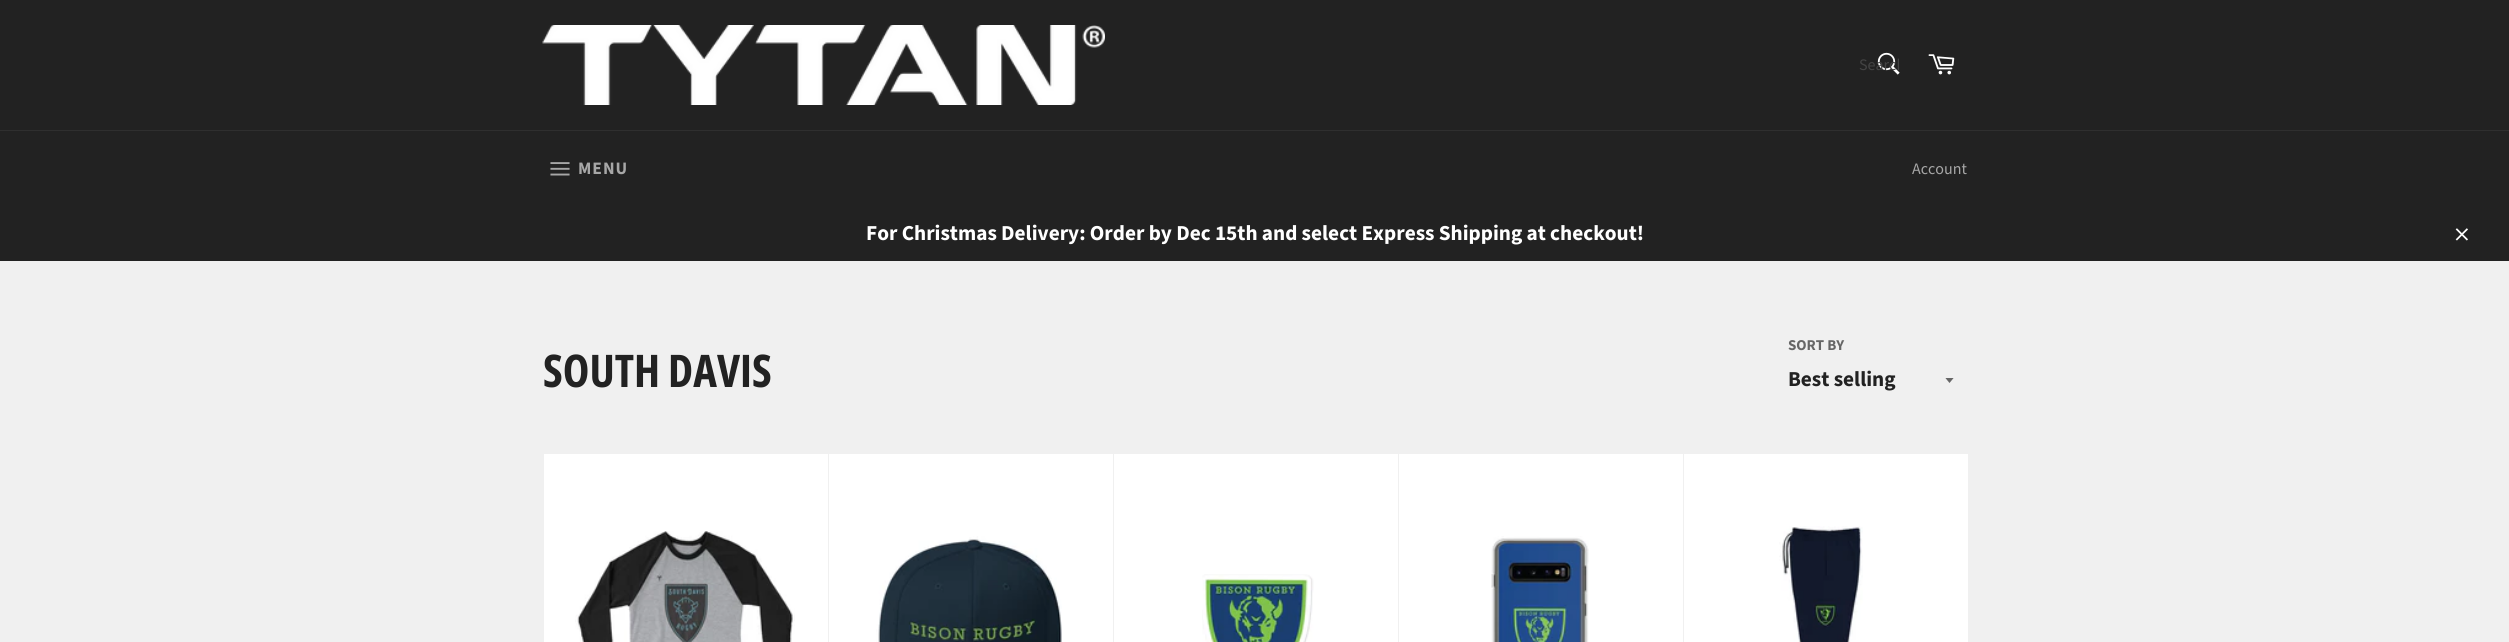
#include <cairo/cairo.h>
#include <math.h>
#include <stddef.h>


static void draw_spaced(cairo_t *cr, double x, double y, const char *s, double letter, double word) {
  cairo_move_to(cr, x, y);
  while (*s) {
    char ch[5] = {0};
    int n = 0;
    do ch[n++] = *s++; while ((*s & 0xC0) == 0x80);
    cairo_show_text(cr, ch);
    cairo_rel_move_to(cr, letter + word * (*ch == ' '), 0);
  }
}

static void draw_image(cairo_t *cr, const char *path, double x, double y, double w, double h) {
  cairo_surface_t *image = cairo_image_surface_create_from_png(path);
  cairo_save(cr);
  cairo_set_source_surface(cr, image, x, y);
  cairo_rectangle(cr, x, y, w, h);
  cairo_fill(cr);
  cairo_restore(cr);
  cairo_surface_destroy(image);
}

static void draw(cairo_t *cr) {
  cairo_set_source_rgb(cr, 240 / 255.0, 240 / 255.0, 240 / 255.0);
  cairo_paint(cr);
  cairo_set_source_rgb(cr, 34 / 255.0, 34 / 255.0, 34 / 255.0);
  cairo_rectangle(cr, 0, 0, 2509, 261);
  cairo_fill(cr);
  draw_image(cr, "images/1.png", 542, 25, 563, 80);
  draw_image(cr, "images/2.png", 1877, 52, 23, 23);
  draw_image(cr, "images/3.png", 1928, 54, 27, 21);
  cairo_set_source_rgb(cr, 47 / 255.0, 47 / 255.0, 47 / 255.0);
  cairo_rectangle(cr, 0, 130, 2509, 1);
  cairo_fill(cr);
  draw_image(cr, "images/4.png", 550, 162, 20, 14);
  draw_image(cr, "images/5.png", 2455, 228, 13, 13);
  cairo_save(cr);
  cairo_rectangle(cr, 1945, 378, 10, 6);
  cairo_clip(cr);
  cairo_set_source_rgb(cr, 102 / 255.0, 102 / 255.0, 102 / 255.0);
  cairo_new_path(cr);
  cairo_move_to(cr, 1945, 377.5);
  cairo_line_to(cr, 1949.5, 383);
  cairo_line_to(cr, 1954, 377.5);
  cairo_close_path(cr);
  cairo_fill(cr);
  cairo_restore(cr);
  cairo_set_source_rgb(cr, 1, 1, 1);
  cairo_rectangle(cr, 544, 454, 284, 188);
  cairo_fill(cr);
  draw_image(cr, "images/6.png", 575, 531, 220, 111);
  cairo_rectangle(cr, 829, 454, 284, 188);
  cairo_fill(cr);
  draw_image(cr, "images/7.png", 876, 536, 186, 106);
  cairo_rectangle(cr, 1114, 454, 284, 188);
  cairo_fill(cr);
  draw_image(cr, "images/8.png", 1202, 574, 112, 68);
  cairo_rectangle(cr, 1399, 454, 284, 188);
  cairo_fill(cr);
  draw_image(cr, "images/9.png", 1491, 536, 98, 106);
  cairo_rectangle(cr, 1684, 454, 284, 188);
  cairo_fill(cr);
  draw_image(cr, "images/10.png", 1779, 526, 84, 116);
  cairo_save(cr);
  cairo_rectangle(cr, 1859, 54, 40, 22);
  cairo_clip(cr);
  cairo_select_font_face(cr, "Source Sans Pro", CAIRO_FONT_SLANT_NORMAL, CAIRO_FONT_WEIGHT_NORMAL);
  cairo_set_font_size(cr, 16);
  cairo_set_source_rgb(cr, 67 / 255.0, 67 / 255.0, 67 / 255.0);
  cairo_move_to(cr, 1859, 70);
  cairo_show_text(cr, "Search");
  cairo_restore(cr);
  cairo_select_font_face(cr, "Source Sans Pro", CAIRO_FONT_SLANT_NORMAL, CAIRO_FONT_WEIGHT_BOLD);
  cairo_set_font_size(cr, 17.5);
  cairo_set_source_rgb(cr, 167 / 255.0, 167 / 255.0, 167 / 255.0);
  draw_spaced(cr, 578, 174, "MENU", 1, 0);
  cairo_select_font_face(cr, "Source Sans Pro", CAIRO_FONT_SLANT_NORMAL, CAIRO_FONT_WEIGHT_NORMAL);
  cairo_set_font_size(cr, 16);
  cairo_move_to(cr, 1912, 174);
  cairo_show_text(cr, "Account");
  cairo_select_font_face(cr, "Source Sans Pro", CAIRO_FONT_SLANT_NORMAL, CAIRO_FONT_WEIGHT_BOLD);
  cairo_set_font_size(cr, 21.25);
  cairo_set_source_rgb(cr, 1, 1, 1);
  cairo_move_to(cr, 866, 240);
  cairo_show_text(cr, "For Christmas Delivery: Order by Dec 15th and select Express Shipping at checkout!");
  cairo_select_font_face(cr, "Open Sans Condensed", CAIRO_FONT_SLANT_NORMAL, CAIRO_FONT_WEIGHT_BOLD);
  cairo_set_font_size(cr, 45);
  cairo_set_source_rgb(cr, 34 / 255.0, 34 / 255.0, 34 / 255.0);
  cairo_move_to(cr, 543, 387);
  cairo_show_text(cr, "SOUTH DAVIS");
  cairo_select_font_face(cr, "Source Sans Pro", CAIRO_FONT_SLANT_NORMAL, CAIRO_FONT_WEIGHT_BOLD);
  cairo_set_font_size(cr, 15);
  cairo_set_source_rgb(cr, 102 / 255.0, 102 / 255.0, 102 / 255.0);
  cairo_move_to(cr, 1788, 350);
  cairo_show_text(cr, "SORT BY");
  cairo_set_font_size(cr, 21.25);
  cairo_set_source_rgb(cr, 34 / 255.0, 34 / 255.0, 34 / 255.0);
  cairo_move_to(cr, 1788, 386);
  cairo_show_text(cr, "Best selling");
}

int main(void) {
  cairo_surface_t *surface = cairo_image_surface_create(CAIRO_FORMAT_RGB24, 2509, 642);
  cairo_t *cr = cairo_create(surface);
  cairo_font_options_t *options = cairo_font_options_create();
  cairo_font_options_set_hint_metrics(options, CAIRO_HINT_METRICS_OFF);
  cairo_font_options_set_hint_style(options, CAIRO_HINT_STYLE_NONE);
  cairo_set_font_options(cr, options);
  cairo_set_miter_limit(cr, 4);
  draw(cr);
  cairo_surface_write_to_png(surface, "out.png");
  cairo_font_options_destroy(options);
  cairo_destroy(cr);
  cairo_surface_destroy(surface);
  return 0;
}
